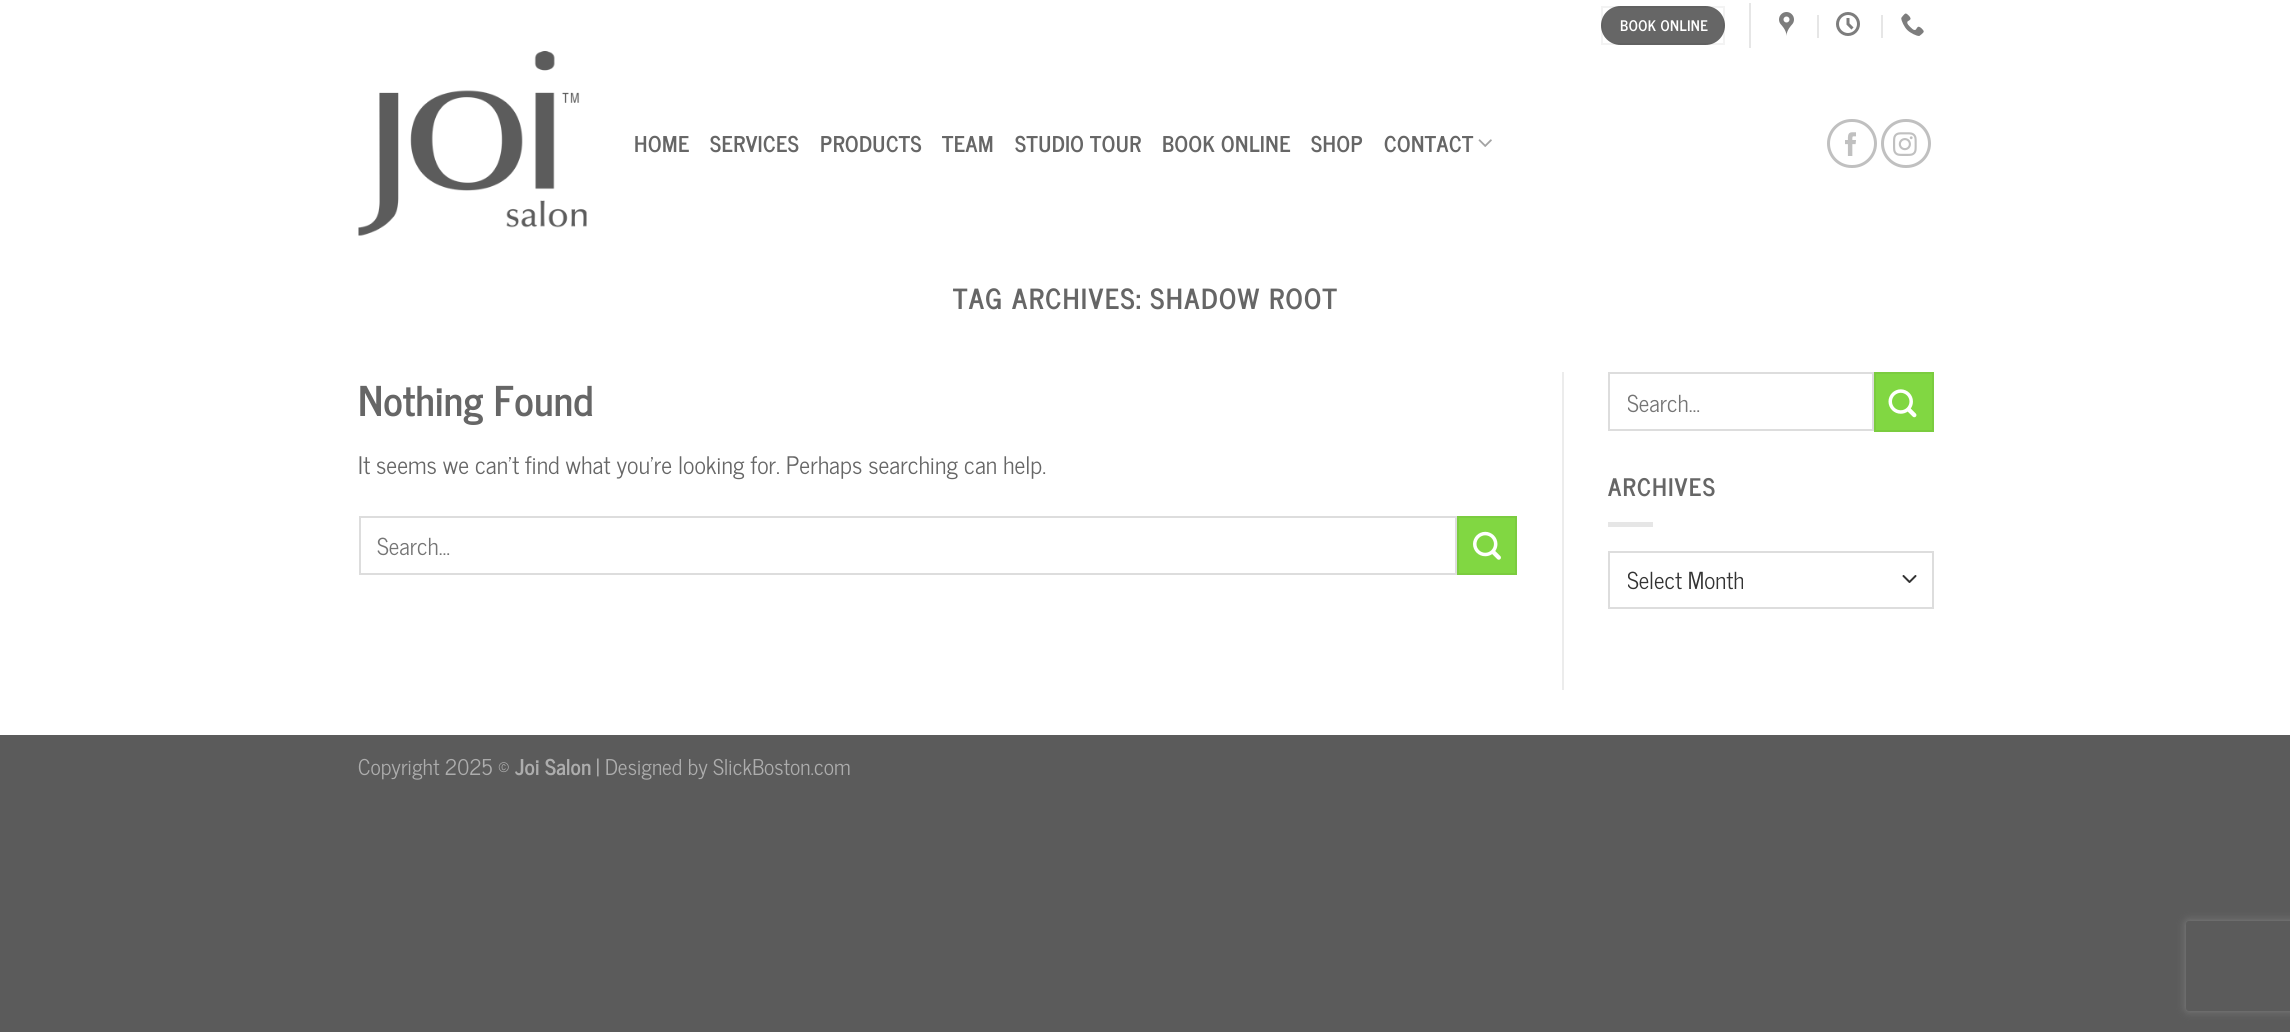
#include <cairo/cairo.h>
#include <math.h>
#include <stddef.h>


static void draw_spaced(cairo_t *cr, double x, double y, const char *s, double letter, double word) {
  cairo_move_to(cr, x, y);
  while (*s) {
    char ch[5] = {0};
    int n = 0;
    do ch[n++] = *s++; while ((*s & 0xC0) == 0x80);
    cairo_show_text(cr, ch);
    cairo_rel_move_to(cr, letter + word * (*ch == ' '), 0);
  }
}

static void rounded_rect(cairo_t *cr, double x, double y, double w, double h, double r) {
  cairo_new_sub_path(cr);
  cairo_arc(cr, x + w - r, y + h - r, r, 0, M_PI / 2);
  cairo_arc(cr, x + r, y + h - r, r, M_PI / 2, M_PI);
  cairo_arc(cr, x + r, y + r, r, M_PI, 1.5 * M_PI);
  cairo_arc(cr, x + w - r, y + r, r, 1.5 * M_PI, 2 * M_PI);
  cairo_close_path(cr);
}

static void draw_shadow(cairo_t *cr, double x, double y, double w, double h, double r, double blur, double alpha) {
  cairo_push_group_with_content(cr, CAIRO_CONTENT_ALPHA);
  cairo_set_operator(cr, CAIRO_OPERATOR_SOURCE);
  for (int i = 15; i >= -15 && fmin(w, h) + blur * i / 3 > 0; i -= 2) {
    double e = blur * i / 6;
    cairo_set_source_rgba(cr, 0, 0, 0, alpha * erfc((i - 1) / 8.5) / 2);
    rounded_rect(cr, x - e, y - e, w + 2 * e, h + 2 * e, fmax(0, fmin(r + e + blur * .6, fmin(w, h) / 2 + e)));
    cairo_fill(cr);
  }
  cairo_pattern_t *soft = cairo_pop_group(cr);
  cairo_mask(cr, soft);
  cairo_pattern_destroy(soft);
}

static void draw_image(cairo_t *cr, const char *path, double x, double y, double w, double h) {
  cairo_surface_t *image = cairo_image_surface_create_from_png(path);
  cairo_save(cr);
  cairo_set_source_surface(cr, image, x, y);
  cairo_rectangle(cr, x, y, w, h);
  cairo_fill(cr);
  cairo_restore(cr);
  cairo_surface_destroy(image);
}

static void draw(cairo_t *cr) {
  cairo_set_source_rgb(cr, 91 / 255.0, 91 / 255.0, 91 / 255.0);
  cairo_paint(cr);
  cairo_set_source_rgb(cr, 1, 1, 1);
  cairo_rectangle(cr, 0, 0, 2290, 735);
  cairo_fill(cr);
  cairo_set_source_rgb(cr, 102 / 255.0, 102 / 255.0, 102 / 255.0);
  rounded_rect(cr, 1601, 6, 124, 39, 19.5);
  cairo_fill(cr);
  cairo_rectangle(cr, 1602, 7, 122, 37);
  cairo_set_source_rgba(cr, 0, 0, 0, 0.05);
  cairo_stroke(cr);
  cairo_set_source_rgb(cr, 230 / 255.0, 230 / 255.0, 230 / 255.0);
  cairo_rectangle(cr, 1749, 3, 2, 45);
  cairo_fill(cr);
  draw_image(cr, "images/1.png", 1779, 12, 15, 24);
  cairo_rectangle(cr, 1817, 15, 2, 23);
  cairo_fill(cr);
  draw_image(cr, "images/2.png", 1836, 12, 24, 24);
  cairo_rectangle(cr, 1881, 15, 2, 23);
  cairo_fill(cr);
  draw_image(cr, "images/3.png", 1901, 13, 23, 23);
  draw_image(cr, "images/4.png", 358, 51, 229, 185);
  draw_image(cr, "images/5.png", 1478, 139, 14, 8);
  rounded_rect(cr, 1828.5, 120.5, 47, 46, 23);
  cairo_set_source_rgb(cr, 192 / 255.0, 192 / 255.0, 192 / 255.0);
  cairo_set_line_width(cr, 3);
  cairo_stroke(cr);
  draw_image(cr, "images/6.png", 1845, 132, 11, 24);
  rounded_rect(cr, 1882.5, 120.5, 47, 46, 23);
  cairo_stroke(cr);
  draw_image(cr, "images/7.png", 1893, 132, 24, 24);
  cairo_rectangle(cr, 360, 517, 1096, 57);
  cairo_set_source_rgb(cr, 221 / 255.0, 221 / 255.0, 221 / 255.0);
  cairo_set_line_width(cr, 2);
  cairo_stroke(cr);
  cairo_set_source_rgb(cr, 129 / 255.0, 215 / 255.0, 66 / 255.0);
  cairo_rectangle(cr, 1458, 517, 58, 57);
  cairo_fill_preserve(cr);
  cairo_set_source_rgb(cr, 123 / 255.0, 204 / 255.0, 63 / 255.0);
  cairo_stroke(cr);
  draw_image(cr, "images/8.png", 1473, 531, 28, 29);
  cairo_set_source_rgb(cr, 236 / 255.0, 236 / 255.0, 236 / 255.0);
  cairo_rectangle(cr, 1562, 372, 2, 318);
  cairo_fill(cr);
  cairo_rectangle(cr, 1609, 373, 264, 57);
  cairo_set_source_rgb(cr, 221 / 255.0, 221 / 255.0, 221 / 255.0);
  cairo_stroke(cr);
  cairo_set_source_rgb(cr, 129 / 255.0, 215 / 255.0, 66 / 255.0);
  cairo_rectangle(cr, 1875, 373, 58, 58);
  cairo_fill_preserve(cr);
  cairo_set_source_rgb(cr, 123 / 255.0, 204 / 255.0, 63 / 255.0);
  cairo_stroke(cr);
  draw_image(cr, "images/9.png", 1888, 389, 29, 29);
  cairo_set_source_rgb(cr, 230 / 255.0, 230 / 255.0, 230 / 255.0);
  cairo_rectangle(cr, 1608, 522, 45, 5);
  cairo_fill(cr);
  cairo_new_path(cr);
  cairo_move_to(cr, 1903.5, 576);
  cairo_line_to(cr, 1909.5, 582);
  cairo_line_to(cr, 1915.5, 576);
  cairo_set_source_rgb(cr, 51 / 255.0, 51 / 255.0, 51 / 255.0);
  cairo_set_line_cap(cr, CAIRO_LINE_CAP_ROUND);
  cairo_set_line_join(cr, CAIRO_LINE_JOIN_ROUND);
  cairo_stroke(cr);
  cairo_rectangle(cr, 1609, 552, 324, 56);
  cairo_set_source_rgb(cr, 221 / 255.0, 221 / 255.0, 221 / 255.0);
  cairo_set_line_cap(cr, CAIRO_LINE_CAP_BUTT);
  cairo_set_line_join(cr, CAIRO_LINE_JOIN_MITER);
  cairo_stroke(cr);
  cairo_save(cr);
  cairo_set_fill_rule(cr, CAIRO_FILL_RULE_EVEN_ODD);
  cairo_new_path(cr);
  cairo_move_to(cr, 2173, 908);
  cairo_line_to(cr, 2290, 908);
  cairo_line_to(cr, 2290, 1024);
  cairo_line_to(cr, 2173, 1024);
  cairo_close_path(cr);
  cairo_move_to(cr, 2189, 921);
  cairo_line_to(cr, 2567, 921);
  cairo_curve_to(cr, 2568.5, 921, 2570, 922.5, 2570, 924);
  cairo_line_to(cr, 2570, 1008);
  cairo_curve_to(cr, 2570, 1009.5, 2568.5, 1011, 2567, 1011);
  cairo_line_to(cr, 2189, 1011);
  cairo_curve_to(cr, 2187.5, 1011, 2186, 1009.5, 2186, 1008);
  cairo_line_to(cr, 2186, 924);
  cairo_curve_to(cr, 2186, 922.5, 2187.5, 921, 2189, 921);
  cairo_close_path(cr);
  cairo_clip(cr);
  cairo_set_source_rgb(cr, 128 / 255.0, 128 / 255.0, 128 / 255.0);
  draw_shadow(cr, 2186, 921, 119, 90, 3, 4, 1);
  cairo_restore(cr);
  cairo_select_font_face(cr, "News Cycle", CAIRO_FONT_SLANT_NORMAL, CAIRO_FONT_WEIGHT_BOLD);
  cairo_set_font_size(cr, 14.5);
  cairo_set_source_rgb(cr, 1, 1, 1);
  draw_spaced(cr, 1620, 31, "BOOK ONLINE", 0.5, 0);
  cairo_set_font_size(cr, 21.6);
  cairo_set_source_rgb(cr, 102 / 255.0, 102 / 255.0, 102 / 255.0);
  draw_spaced(cr, 634, 152, "HOME", 0.5, 0);
  draw_spaced(cr, 710, 152, "SERVICES", 0.5, 0);
  draw_spaced(cr, 820, 152, "PRODUCTS", 0.5, 0);
  draw_spaced(cr, 942, 152, "TEAM", 0.5, 0);
  draw_spaced(cr, 1015, 152, "STUDIO TOUR", 0.5, 0);
  draw_spaced(cr, 1162, 152, "BOOK ONLINE", 0.5, 0);
  draw_spaced(cr, 1311, 152, "SHOP", 0.5, 0);
  draw_spaced(cr, 1384, 152, "CONTACT", 0.5, 0);
  cairo_set_font_size(cr, 27.6);
  draw_spaced(cr, 953, 309, "TAG ARCHIVES: SHADOW ROOT", 1.4, 0);
  cairo_set_font_size(cr, 40.75);
  cairo_move_to(cr, 358, 416);
  cairo_show_text(cr, "Nothing Found");
  cairo_select_font_face(cr, "News Cycle", CAIRO_FONT_SLANT_NORMAL, CAIRO_FONT_WEIGHT_NORMAL);
  cairo_set_font_size(cr, 24);
  cairo_move_to(cr, 358, 474);
  cairo_show_text(cr, "It seems we can’t find what you’re looking for. Perhaps searching can help.");
  cairo_set_font_size(cr, 23.25);
  cairo_set_source_rgb(cr, 117 / 255.0, 117 / 255.0, 117 / 255.0);
  cairo_move_to(cr, 377, 555);
  cairo_show_text(cr, "Search…");
  cairo_save(cr);
  cairo_rectangle(cr, 1628, 383, 220, 39);
  cairo_clip(cr);
  cairo_move_to(cr, 1627, 412);
  cairo_show_text(cr, "Search…");
  cairo_restore(cr);
  cairo_select_font_face(cr, "News Cycle", CAIRO_FONT_SLANT_NORMAL, CAIRO_FONT_WEIGHT_BOLD);
  cairo_set_font_size(cr, 24);
  cairo_set_source_rgb(cr, 102 / 255.0, 102 / 255.0, 102 / 255.0);
  draw_spaced(cr, 1608, 496, "ARCHIVES", 1.25, 0);
  cairo_save(cr);
  cairo_rectangle(cr, 1628, 561, 271, 38);
  cairo_clip(cr);
  cairo_select_font_face(cr, "News Cycle", CAIRO_FONT_SLANT_NORMAL, CAIRO_FONT_WEIGHT_NORMAL);
  cairo_set_font_size(cr, 23.25);
  cairo_set_source_rgb(cr, 51 / 255.0, 51 / 255.0, 51 / 255.0);
  cairo_move_to(cr, 1627, 589);
  cairo_show_text(cr, "Select Month");
  cairo_restore(cr);
  cairo_select_font_face(cr, "News Cycle", CAIRO_FONT_SLANT_NORMAL, CAIRO_FONT_WEIGHT_NORMAL);
  cairo_set_font_size(cr, 21.6);
  cairo_set_source_rgb(cr, 173 / 255.0, 173 / 255.0, 173 / 255.0);
  cairo_move_to(cr, 358, 775);
  cairo_show_text(cr, "Copyright 2025 ©");
  cairo_select_font_face(cr, "News Cycle", CAIRO_FONT_SLANT_NORMAL, CAIRO_FONT_WEIGHT_BOLD);
  cairo_move_to(cr, 515, 775);
  cairo_show_text(cr, "Joi Salon");
  cairo_select_font_face(cr, "News Cycle", CAIRO_FONT_SLANT_NORMAL, CAIRO_FONT_WEIGHT_NORMAL);
  cairo_move_to(cr, 596, 775);
  cairo_show_text(cr, "| Designed by SlickBoston.com");
}

int main(void) {
  cairo_surface_t *surface = cairo_image_surface_create(CAIRO_FORMAT_RGB24, 2290, 1032);
  cairo_t *cr = cairo_create(surface);
  cairo_font_options_t *options = cairo_font_options_create();
  cairo_font_options_set_hint_metrics(options, CAIRO_HINT_METRICS_OFF);
  cairo_font_options_set_hint_style(options, CAIRO_HINT_STYLE_NONE);
  cairo_set_font_options(cr, options);
  cairo_set_miter_limit(cr, 4);
  draw(cr);
  cairo_surface_write_to_png(surface, "out.png");
  cairo_font_options_destroy(options);
  cairo_destroy(cr);
  cairo_surface_destroy(surface);
  return 0;
}
